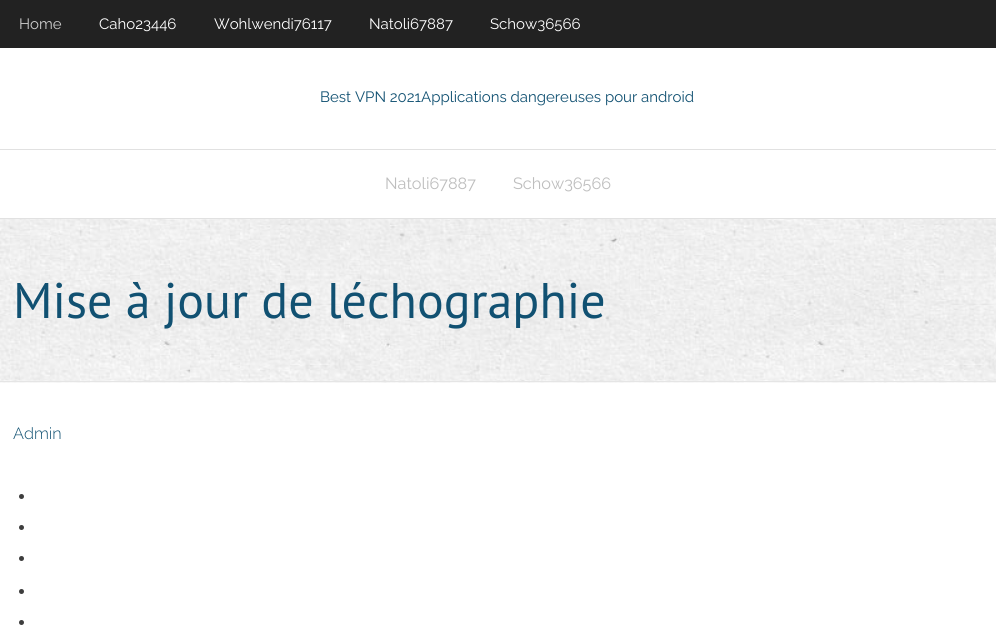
#include <cairo/cairo.h>
#include <math.h>
#include <stddef.h>


static void draw_image(cairo_t *cr, const char *path, double x, double y, double w, double h) {
  cairo_surface_t *image = cairo_image_surface_create_from_png(path);
  cairo_save(cr);
  cairo_set_source_surface(cr, image, x, y);
  cairo_rectangle(cr, x, y, w, h);
  cairo_fill(cr);
  cairo_restore(cr);
  cairo_surface_destroy(image);
}

static void draw(cairo_t *cr) {
  cairo_set_source_rgb(cr, 1, 1, 1);
  cairo_paint(cr);
  cairo_set_source_rgb(cr, 34 / 255.0, 34 / 255.0, 34 / 255.0);
  cairo_rectangle(cr, 0, 0, 996, 48);
  cairo_fill(cr);
  cairo_set_source_rgb(cr, 225 / 255.0, 225 / 255.0, 225 / 255.0);
  cairo_rectangle(cr, 0, 149, 996, 1);
  cairo_fill(cr);
  cairo_rectangle(cr, 0, 218, 996, 1);
  cairo_fill(cr);
  draw_image(cr, "images/1.png", 0, 219, 996, 164);
  cairo_set_source_rgb(cr, 229 / 255.0, 229 / 255.0, 229 / 255.0);
  cairo_rectangle(cr, 0, 381, 996, 1);
  cairo_fill(cr);
  cairo_set_source_rgb(cr, 61 / 255.0, 61 / 255.0, 61 / 255.0);
  cairo_arc(cr, 21.5, 496.5, 2.5, 0, 2 * M_PI);
  cairo_fill(cr);
  cairo_arc(cr, 21.5, 527.5, 2.5, 0, 2 * M_PI);
  cairo_fill(cr);
  cairo_arc(cr, 21.5, 558.5, 2.5, 0, 2 * M_PI);
  cairo_fill(cr);
  cairo_arc(cr, 21.5, 591.5, 2.5, 0, 2 * M_PI);
  cairo_fill(cr);
  cairo_arc(cr, 21.5, 622.5, 2.5, 0, 2 * M_PI);
  cairo_fill(cr);
  cairo_select_font_face(cr, "Raleway", CAIRO_FONT_SLANT_NORMAL, CAIRO_FONT_WEIGHT_NORMAL);
  cairo_set_font_size(cr, 15);
  cairo_set_source_rgb(cr, 204 / 255.0, 204 / 255.0, 204 / 255.0);
  cairo_move_to(cr, 19, 29);
  cairo_show_text(cr, "Home");
  cairo_set_source_rgb(cr, 1, 1, 1);
  cairo_move_to(cr, 99, 29);
  cairo_show_text(cr, "Caho23446");
  cairo_move_to(cr, 214, 29);
  cairo_show_text(cr, "Wohlwendi76117");
  cairo_move_to(cr, 369, 29);
  cairo_show_text(cr, "Natoli67887");
  cairo_move_to(cr, 490, 29);
  cairo_show_text(cr, "Schow36566");
  cairo_set_source_rgb(cr, 17 / 255.0, 81 / 255.0, 114 / 255.0);
  cairo_move_to(cr, 320, 102);
  cairo_show_text(cr, "Best VPN 2021Applications dangereuses pour android");
  cairo_set_font_size(cr, 16.25);
  cairo_set_source_rgb(cr, 190 / 255.0, 190 / 255.0, 190 / 255.0);
  cairo_move_to(cr, 385, 189);
  cairo_show_text(cr, "Natoli67887");
  cairo_move_to(cr, 513, 189);
  cairo_show_text(cr, "Schow36566");
  cairo_select_font_face(cr, "PT Sans", CAIRO_FONT_SLANT_NORMAL, CAIRO_FONT_WEIGHT_NORMAL);
  cairo_set_font_size(cr, 50);
  cairo_set_source_rgb(cr, 17 / 255.0, 81 / 255.0, 114 / 255.0);
  cairo_move_to(cr, 13, 318);
  cairo_show_text(cr, "Mise à jour de léchographie");
  cairo_select_font_face(cr, "Raleway Light", CAIRO_FONT_SLANT_NORMAL, CAIRO_FONT_WEIGHT_NORMAL);
  cairo_set_font_size(cr, 16.25);
  cairo_move_to(cr, 13, 439);
  cairo_show_text(cr, "Admin");
}

int main(void) {
  cairo_surface_t *surface = cairo_image_surface_create(CAIRO_FORMAT_RGB24, 996, 634);
  cairo_t *cr = cairo_create(surface);
  cairo_font_options_t *options = cairo_font_options_create();
  cairo_font_options_set_hint_metrics(options, CAIRO_HINT_METRICS_OFF);
  cairo_font_options_set_hint_style(options, CAIRO_HINT_STYLE_NONE);
  cairo_set_font_options(cr, options);
  cairo_set_miter_limit(cr, 4);
  draw(cr);
  cairo_surface_write_to_png(surface, "out.png");
  cairo_font_options_destroy(options);
  cairo_destroy(cr);
  cairo_surface_destroy(surface);
  return 0;
}
